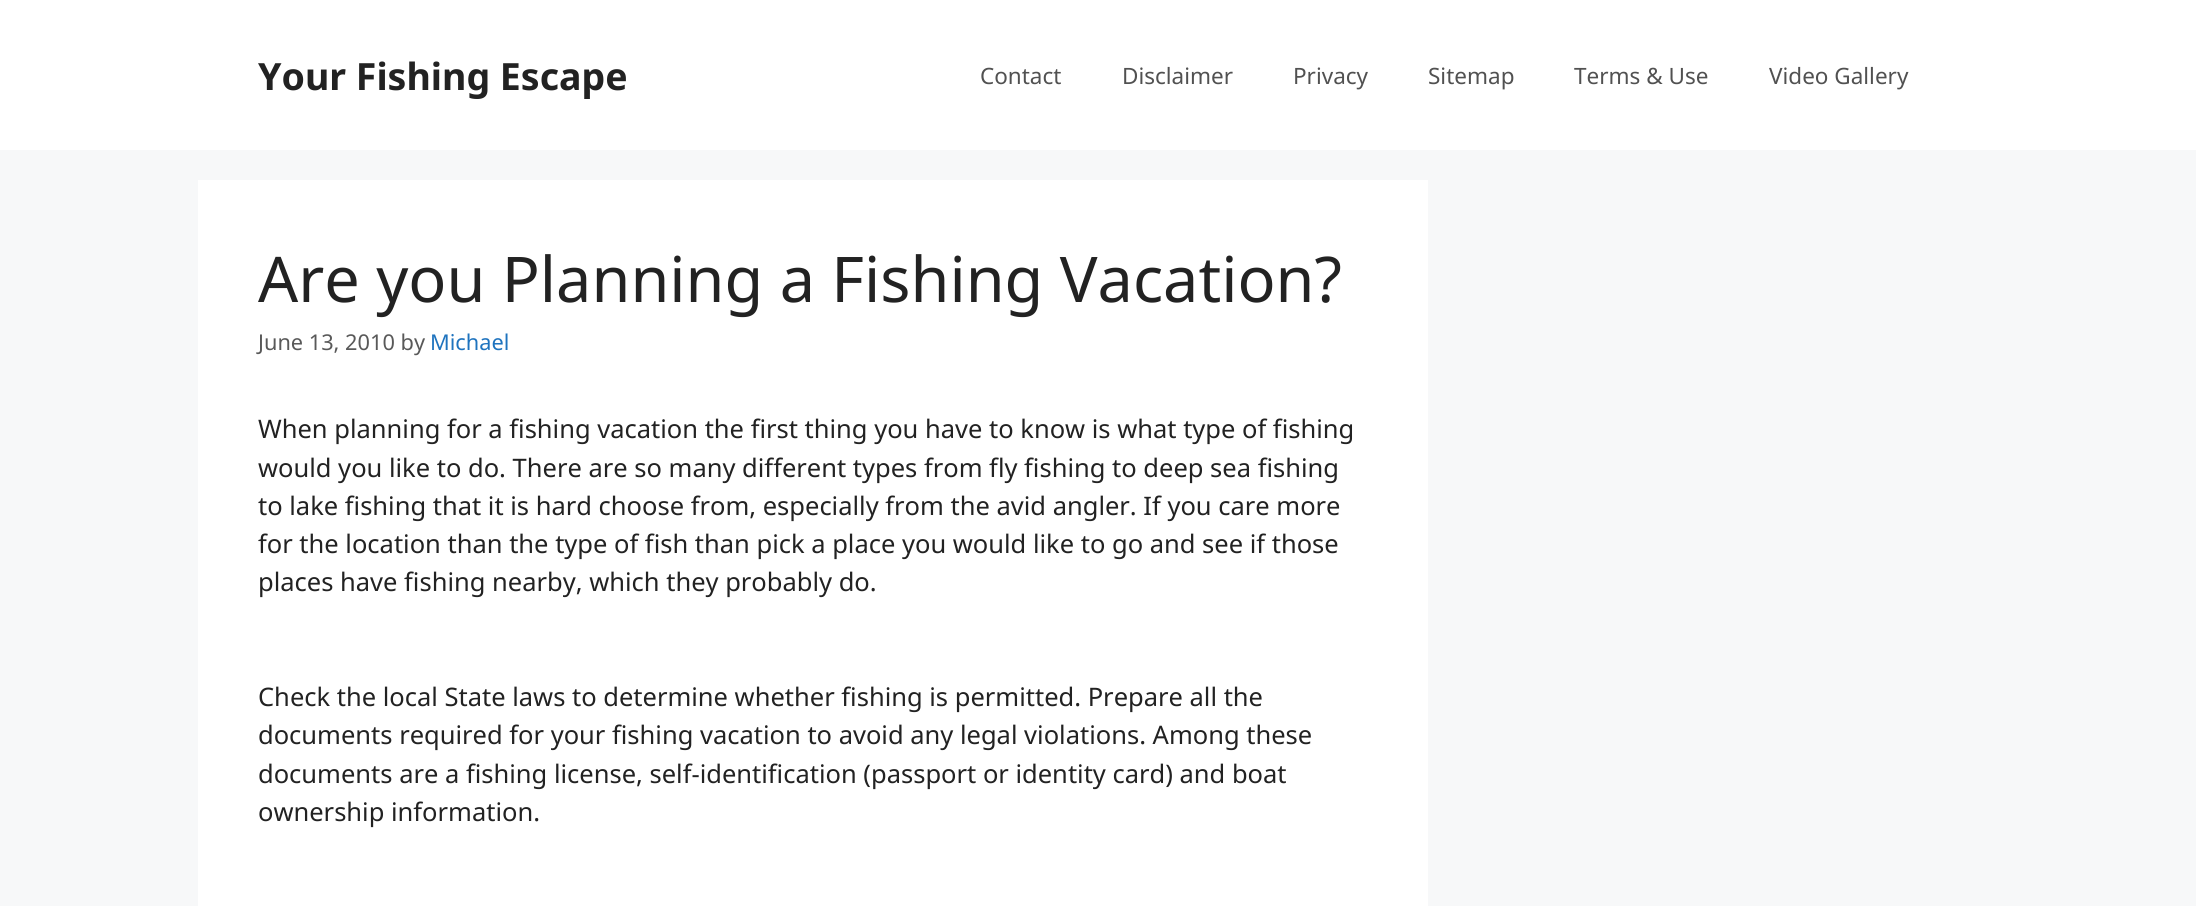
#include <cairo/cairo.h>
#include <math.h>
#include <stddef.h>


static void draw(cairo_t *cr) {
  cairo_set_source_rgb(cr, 247 / 255.0, 248 / 255.0, 249 / 255.0);
  cairo_paint(cr);
  cairo_set_source_rgb(cr, 1, 1, 1);
  cairo_rectangle(cr, 0, 0, 2196, 150);
  cairo_fill(cr);
  cairo_rectangle(cr, 198, 180, 1230, 726);
  cairo_fill(cr);
  cairo_select_font_face(cr, "Noto Sans", CAIRO_FONT_SLANT_NORMAL, CAIRO_FONT_WEIGHT_BOLD);
  cairo_set_font_size(cr, 37.5);
  cairo_set_source_rgb(cr, 34 / 255.0, 34 / 255.0, 34 / 255.0);
  cairo_move_to(cr, 258, 90);
  cairo_show_text(cr, "Your Fishing Escape");
  cairo_select_font_face(cr, "Noto Sans", CAIRO_FONT_SLANT_NORMAL, CAIRO_FONT_WEIGHT_NORMAL);
  cairo_set_font_size(cr, 22.5);
  cairo_set_source_rgb(cr, 81 / 255.0, 81 / 255.0, 81 / 255.0);
  cairo_move_to(cr, 980, 84);
  cairo_show_text(cr, "Contact");
  cairo_move_to(cr, 1122, 84);
  cairo_show_text(cr, "Disclaimer");
  cairo_move_to(cr, 1293, 84);
  cairo_show_text(cr, "Privacy");
  cairo_move_to(cr, 1428, 84);
  cairo_show_text(cr, "Sitemap");
  cairo_move_to(cr, 1574, 84);
  cairo_show_text(cr, "Terms & Use");
  cairo_move_to(cr, 1769, 84);
  cairo_show_text(cr, "Video Gallery");
  cairo_set_font_size(cr, 63);
  cairo_set_source_rgb(cr, 34 / 255.0, 34 / 255.0, 34 / 255.0);
  cairo_move_to(cr, 258, 302);
  cairo_show_text(cr, "Are you Planning a Fishing Vacation?");
  cairo_set_font_size(cr, 21.75);
  cairo_set_source_rgb(cr, 89 / 255.0, 89 / 255.0, 89 / 255.0);
  cairo_move_to(cr, 258, 350);
  cairo_show_text(cr, "June 13, 2010 by");
  cairo_set_source_rgb(cr, 30 / 255.0, 115 / 255.0, 190 / 255.0);
  cairo_move_to(cr, 430, 350);
  cairo_show_text(cr, "Michael");
  cairo_set_font_size(cr, 25.5);
  cairo_set_source_rgb(cr, 34 / 255.0, 34 / 255.0, 34 / 255.0);
  cairo_move_to(cr, 258, 438);
  cairo_show_text(cr, "When planning for a fishing vacation the first thing you have to know is what type of fishing");
  cairo_move_to(cr, 258, 477);
  cairo_show_text(cr, "would you like to do. There are so many different types from fly fishing to deep sea fishing");
  cairo_move_to(cr, 258, 515);
  cairo_show_text(cr, "to lake fishing that it is hard choose from, especially from the avid angler. If you care more");
  cairo_move_to(cr, 258, 553);
  cairo_show_text(cr, "for the location than the type of fish than pick a place you would like to go and see if those");
  cairo_move_to(cr, 258, 591);
  cairo_show_text(cr, "places have fishing nearby, which they probably do.");
  cairo_move_to(cr, 258, 706);
  cairo_show_text(cr, "Check the local State laws to determine whether fishing is permitted. Prepare all the");
  cairo_move_to(cr, 258, 744);
  cairo_show_text(cr, "documents required for your fishing vacation to avoid any legal violations. Among these");
  cairo_move_to(cr, 258, 783);
  cairo_show_text(cr, "documents are a fishing license, self-identification (passport or identity card) and boat");
  cairo_move_to(cr, 258, 821);
  cairo_show_text(cr, "ownership information.");
}

int main(void) {
  cairo_surface_t *surface = cairo_image_surface_create(CAIRO_FORMAT_RGB24, 2196, 906);
  cairo_t *cr = cairo_create(surface);
  cairo_font_options_t *options = cairo_font_options_create();
  cairo_font_options_set_hint_metrics(options, CAIRO_HINT_METRICS_OFF);
  cairo_font_options_set_hint_style(options, CAIRO_HINT_STYLE_NONE);
  cairo_set_font_options(cr, options);
  cairo_set_miter_limit(cr, 4);
  draw(cr);
  cairo_surface_write_to_png(surface, "out.png");
  cairo_font_options_destroy(options);
  cairo_destroy(cr);
  cairo_surface_destroy(surface);
  return 0;
}
